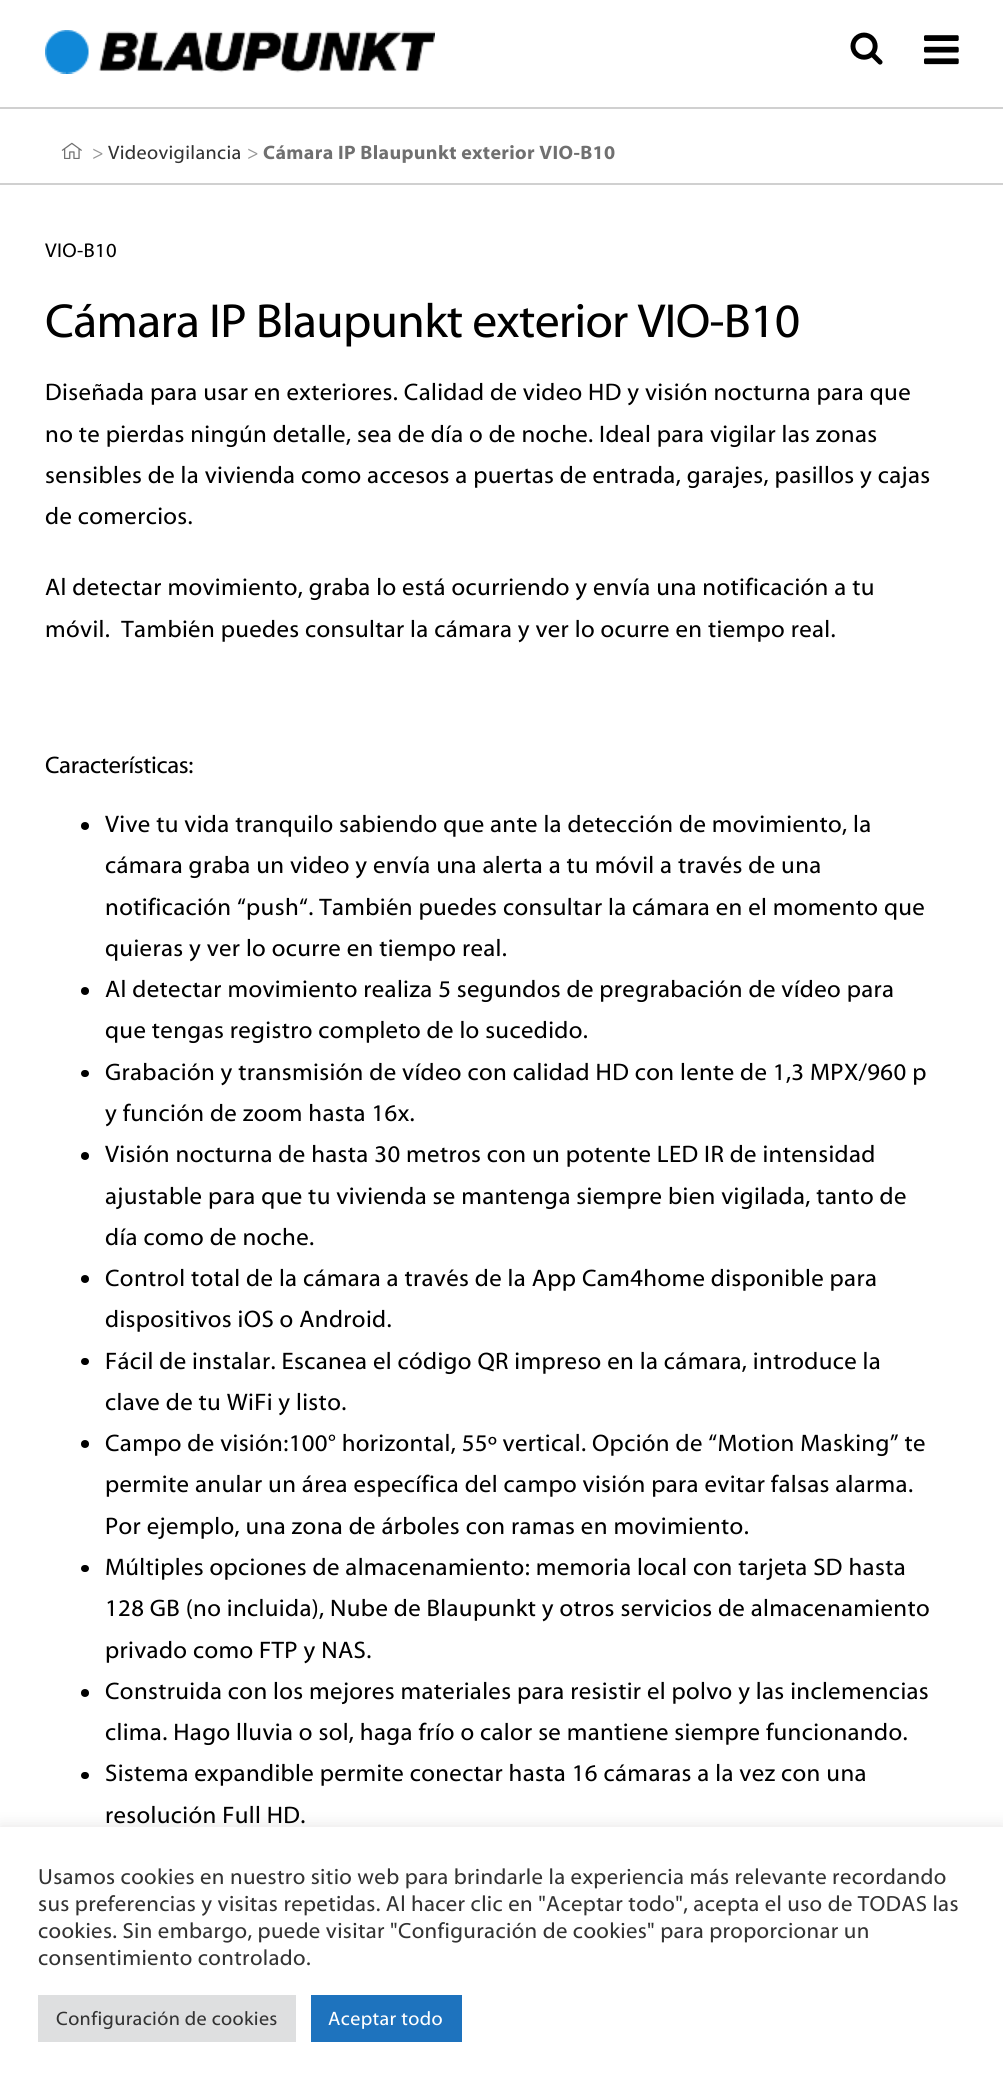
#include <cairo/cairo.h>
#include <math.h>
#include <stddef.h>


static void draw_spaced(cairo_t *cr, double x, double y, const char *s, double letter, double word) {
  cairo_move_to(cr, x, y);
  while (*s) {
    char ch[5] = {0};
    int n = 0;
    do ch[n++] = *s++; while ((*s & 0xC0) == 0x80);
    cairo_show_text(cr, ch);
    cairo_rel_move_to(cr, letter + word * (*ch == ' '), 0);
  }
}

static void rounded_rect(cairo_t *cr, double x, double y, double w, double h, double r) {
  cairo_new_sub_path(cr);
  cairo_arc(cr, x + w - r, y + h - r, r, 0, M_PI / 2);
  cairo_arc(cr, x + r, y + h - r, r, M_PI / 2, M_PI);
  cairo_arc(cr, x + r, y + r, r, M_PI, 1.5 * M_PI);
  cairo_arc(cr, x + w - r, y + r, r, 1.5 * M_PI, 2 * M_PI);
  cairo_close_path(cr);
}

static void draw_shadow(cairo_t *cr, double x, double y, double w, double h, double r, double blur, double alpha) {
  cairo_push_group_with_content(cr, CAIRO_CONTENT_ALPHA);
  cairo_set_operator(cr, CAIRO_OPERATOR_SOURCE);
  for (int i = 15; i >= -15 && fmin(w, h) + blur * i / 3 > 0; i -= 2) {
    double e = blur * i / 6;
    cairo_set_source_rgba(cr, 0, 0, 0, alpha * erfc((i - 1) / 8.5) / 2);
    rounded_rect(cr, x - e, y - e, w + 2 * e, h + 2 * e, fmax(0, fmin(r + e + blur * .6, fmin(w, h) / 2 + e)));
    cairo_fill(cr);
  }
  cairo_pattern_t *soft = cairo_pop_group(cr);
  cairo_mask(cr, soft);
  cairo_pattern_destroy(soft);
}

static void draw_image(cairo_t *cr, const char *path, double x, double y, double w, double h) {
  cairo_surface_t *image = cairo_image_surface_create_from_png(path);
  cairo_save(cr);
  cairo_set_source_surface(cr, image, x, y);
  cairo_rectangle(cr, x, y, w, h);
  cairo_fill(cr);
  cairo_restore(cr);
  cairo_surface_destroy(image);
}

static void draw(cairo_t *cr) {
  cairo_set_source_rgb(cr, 1, 1, 1);
  cairo_paint(cr);
  draw_image(cr, "images/1.png", 45, 30, 390, 44);
  draw_image(cr, "images/2.png", 850, 32, 33, 33);
  draw_image(cr, "images/3.png", 924, 35, 35, 30);
  cairo_set_source_rgb(cr, 208 / 255.0, 208 / 255.0, 208 / 255.0);
  cairo_rectangle(cr, 0, 107, 1003, 2);
  cairo_fill(cr);
  cairo_rectangle(cr, 0, 183, 1003, 2);
  cairo_fill(cr);
  draw_image(cr, "images/4.png", 61, 142, 21, 17);
  cairo_set_source_rgb(cr, 0, 0, 0);
  cairo_arc(cr, 85, 826, 4, 0, 2 * M_PI);
  cairo_fill(cr);
  cairo_arc(cr, 85, 991, 4, 0, 2 * M_PI);
  cairo_fill(cr);
  rounded_rect(cr, 81, 1070, 8, 7, 3.5);
  cairo_fill(cr);
  cairo_arc(cr, 85, 1156, 4, 0, 2 * M_PI);
  cairo_fill(cr);
  cairo_arc(cr, 85, 1279, 4, 0, 2 * M_PI);
  cairo_fill(cr);
  rounded_rect(cr, 81, 1358, 8, 7, 3.5);
  cairo_fill(cr);
  cairo_arc(cr, 85, 1444, 4, 0, 2 * M_PI);
  cairo_fill(cr);
  rounded_rect(cr, 81, 1565, 8, 7, 3.5);
  cairo_fill(cr);
  cairo_arc(cr, 85, 1693, 4, 0, 2 * M_PI);
  cairo_fill(cr);
  rounded_rect(cr, 81, 1772, 8, 7, 3.5);
  cairo_fill(cr);
  cairo_set_source_rgb(cr, 172 / 255.0, 171 / 255.0, 171 / 255.0);
  draw_shadow(cr, 0, 1826, 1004, 259, 0, 7.5, 0.3);
  cairo_set_source_rgb(cr, 1, 1, 1);
  cairo_rectangle(cr, 0, 1827, 1003, 259);
  cairo_fill(cr);
  cairo_set_source_rgb(cr, 222 / 255.0, 223 / 255.0, 224 / 255.0);
  cairo_rectangle(cr, 38, 1995, 258, 47);
  cairo_fill(cr);
  cairo_set_source_rgb(cr, 30 / 255.0, 115 / 255.0, 190 / 255.0);
  cairo_rectangle(cr, 311, 1995, 151, 47);
  cairo_fill(cr);
  cairo_select_font_face(cr, "Myriad", CAIRO_FONT_SLANT_NORMAL, CAIRO_FONT_WEIGHT_NORMAL);
  cairo_set_font_size(cr, 19.5);
  cairo_set_source_rgb(cr, 150 / 255.0, 150 / 255.0, 150 / 255.0);
  draw_spaced(cr, 92, 159, ">", 0.35, 0);
  cairo_set_source_rgb(cr, 51 / 255.0, 51 / 255.0, 51 / 255.0);
  draw_spaced(cr, 108, 159, "Videovigilancia", 0.35, 0);
  cairo_set_source_rgb(cr, 150 / 255.0, 150 / 255.0, 150 / 255.0);
  draw_spaced(cr, 247, 159, ">", 0.35, 0);
  cairo_select_font_face(cr, "Myriad", CAIRO_FONT_SLANT_NORMAL, CAIRO_FONT_WEIGHT_BOLD);
  cairo_set_source_rgb(cr, 112 / 255.0, 112 / 255.0, 112 / 255.0);
  draw_spaced(cr, 263, 159, "Cámara IP Blaupunkt exterior VIO-B10", 0.35, 0);
  cairo_select_font_face(cr, "Myriad", CAIRO_FONT_SLANT_NORMAL, CAIRO_FONT_WEIGHT_NORMAL);
  cairo_set_font_size(cr, 20);
  cairo_set_source_rgb(cr, 0, 0, 0);
  draw_spaced(cr, 45, 257, "VIO-B10", 0.35, 0);
  cairo_set_font_size(cr, 48);
  draw_spaced(cr, 45, 337, "Cámara IP Blaupunkt exterior VIO-B10", -0.7, 0);
  cairo_set_font_size(cr, 24);
  draw_spaced(cr, 45, 400, "Diseñada para usar en exteriores. Calidad de video HD y visión nocturna para que", 0.35, 0);
  draw_spaced(cr, 45, 442, "no te pierdas ningún detalle, sea de día o de noche. Ideal para vigilar las zonas", 0.35, 0);
  draw_spaced(cr, 45, 483, "sensibles de la vivienda como accesos a puertas de entrada, garajes, pasillos y cajas", 0.35, 0);
  draw_spaced(cr, 45, 524, "de comercios.", 0.35, 0);
  draw_spaced(cr, 45, 595, "Al detectar movimiento, graba lo está ocurriendo y envía una notificación a tu", 0.35, 0);
  draw_spaced(cr, 45, 637, "móvil.  También puedes consultar la cámara y ver lo ocurre en tiempo real.", 0.35, 0);
  draw_spaced(cr, 45, 773, "Características:", -0.4, 0);
  draw_spaced(cr, 105, 832, "Vive tu vida tranquilo sabiendo que ante la detección de movimiento, la", 0.35, 0);
  draw_spaced(cr, 105, 873, "cámara graba un video y envía una alerta a tu móvil a través de una", 0.35, 0);
  draw_spaced(cr, 105, 915, "notificación “push“. También puedes consultar la cámara en el momento que", 0.35, 0);
  draw_spaced(cr, 105, 956, "quieras y ver lo ocurre en tiempo real.", 0.35, 0);
  draw_spaced(cr, 105, 997, "Al detectar movimiento realiza 5 segundos de pregrabación de vídeo para", 0.35, 0);
  draw_spaced(cr, 105, 1038, "que tengas registro completo de lo sucedido.", 0.35, 0);
  draw_spaced(cr, 105, 1080, "Grabación y transmisión de vídeo con calidad HD con lente de 1,3 MPX/960 p", 0.35, 0);
  draw_spaced(cr, 105, 1121, "y función de zoom hasta 16x.", 0.35, 0);
  draw_spaced(cr, 105, 1162, "Visión nocturna de hasta 30 metros con un potente LED IR de intensidad", 0.35, 0);
  draw_spaced(cr, 105, 1204, "ajustable para que tu vivienda se mantenga siempre bien vigilada, tanto de", 0.35, 0);
  draw_spaced(cr, 105, 1245, "día como de noche.", 0.35, 0);
  draw_spaced(cr, 105, 1286, "Control total de la cámara a través de la App Cam4home disponible para", 0.35, 0);
  draw_spaced(cr, 105, 1327, "dispositivos iOS o Android.", 0.35, 0);
  draw_spaced(cr, 105, 1369, "Fácil de instalar. Escanea el código QR impreso en la cámara, introduce la", 0.35, 0);
  draw_spaced(cr, 105, 1410, "clave de tu WiFi y listo.", 0.35, 0);
  draw_spaced(cr, 105, 1451, "Campo de visión:100° horizontal, 55º vertical. Opción de “Motion Masking” te", 0.35, 0);
  draw_spaced(cr, 105, 1492, "permite anular un área específica del campo visión para evitar falsas alarma.", 0.35, 0);
  draw_spaced(cr, 105, 1534, "Por ejemplo, una zona de árboles con ramas en movimiento.", 0.35, 0);
  draw_spaced(cr, 105, 1575, "Múltiples opciones de almacenamiento: memoria local con tarjeta SD hasta", 0.35, 0);
  draw_spaced(cr, 105, 1616, "128 GB (no incluida), Nube de Blaupunkt y otros servicios de almacenamiento", 0.35, 0);
  draw_spaced(cr, 105, 1658, "privado como FTP y NAS.", 0.35, 0);
  draw_spaced(cr, 105, 1699, "Construida con los mejores materiales para resistir el polvo y las inclemencias", 0.35, 0);
  draw_spaced(cr, 105, 1740, "clima. Hago lluvia o sol, haga frío o calor se mantiene siempre funcionando.", 0.35, 0);
  draw_spaced(cr, 105, 1781, "Sistema expandible permite conectar hasta 16 cámaras a la vez con una", 0.35, 0);
  draw_spaced(cr, 105, 1823, "resolución Full HD.", 0.35, 0);
  cairo_set_font_size(cr, 22);
  cairo_set_source_rgb(cr, 51 / 255.0, 51 / 255.0, 51 / 255.0);
  draw_spaced(cr, 38, 1884, "Usamos cookies en nuestro sitio web para brindarle la experiencia más relevante recordando", 0.35, 0);
  draw_spaced(cr, 38, 1911, "sus preferencias y visitas repetidas. Al hacer clic en \"Aceptar todo\", acepta el uso de TODAS las", 0.35, 0);
  draw_spaced(cr, 38, 1938, "cookies. Sin embargo, puede visitar \"Configuración de cookies\" para proporcionar un", 0.35, 0);
  draw_spaced(cr, 38, 1965, "consentimiento controlado.", 0.35, 0);
  cairo_set_font_size(cr, 19.5);
  draw_spaced(cr, 56, 2025, "Configuración de cookies", 0.35, 0);
  cairo_set_source_rgb(cr, 1, 1, 1);
  draw_spaced(cr, 328, 2025, "Aceptar todo", 0.35, 0);
}

int main(void) {
  cairo_surface_t *surface = cairo_image_surface_create(CAIRO_FORMAT_RGB24, 1003, 2086);
  cairo_t *cr = cairo_create(surface);
  cairo_font_options_t *options = cairo_font_options_create();
  cairo_font_options_set_hint_metrics(options, CAIRO_HINT_METRICS_OFF);
  cairo_font_options_set_hint_style(options, CAIRO_HINT_STYLE_NONE);
  cairo_set_font_options(cr, options);
  cairo_set_miter_limit(cr, 4);
  draw(cr);
  cairo_surface_write_to_png(surface, "out.png");
  cairo_font_options_destroy(options);
  cairo_destroy(cr);
  cairo_surface_destroy(surface);
  return 0;
}
